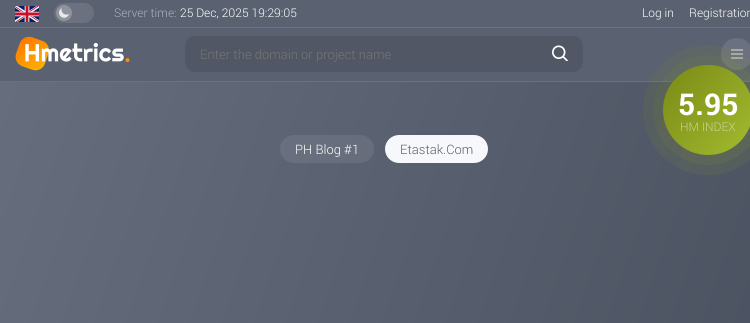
#include <cairo/cairo.h>
#include <math.h>
#include <stddef.h>


static void rounded_rect(cairo_t *cr, double x, double y, double w, double h, double r) {
  cairo_new_sub_path(cr);
  cairo_arc(cr, x + w - r, y + h - r, r, 0, M_PI / 2);
  cairo_arc(cr, x + r, y + h - r, r, M_PI / 2, M_PI);
  cairo_arc(cr, x + r, y + r, r, M_PI, 1.5 * M_PI);
  cairo_arc(cr, x + w - r, y + r, r, 1.5 * M_PI, 2 * M_PI);
  cairo_close_path(cr);
}

static void draw_image(cairo_t *cr, const char *path, double x, double y, double w, double h) {
  cairo_surface_t *image = cairo_image_surface_create_from_png(path);
  cairo_save(cr);
  cairo_set_source_surface(cr, image, x, y);
  cairo_rectangle(cr, x, y, w, h);
  cairo_fill(cr);
  cairo_restore(cr);
  cairo_surface_destroy(image);
}

static void draw(cairo_t *cr) {
  cairo_pattern_t *gradient;
  cairo_set_source_rgb(cr, 1, 1, 1);
  cairo_paint(cr);
  gradient = cairo_pattern_create_linear(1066, 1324, -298, 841);
  cairo_pattern_add_color_stop_rgba(gradient, 0, 55 / 255.0, 62 / 255.0, 75 / 255.0, 1);
  cairo_pattern_add_color_stop_rgba(gradient, 1, 103 / 255.0, 110 / 255.0, 126 / 255.0, 1);
  cairo_set_source(cr, gradient);
  cairo_pattern_destroy(gradient);
  cairo_rectangle(cr, 0, 82, 750, 241);
  cairo_fill(cr);
  cairo_set_source_rgb(cr, 90 / 255.0, 97 / 255.0, 112 / 255.0);
  cairo_rectangle(cr, 0, 0, 750, 27);
  cairo_fill(cr);
  cairo_set_source_rgb(cr, 107 / 255.0, 113 / 255.0, 126 / 255.0);
  cairo_rectangle(cr, 0, 27, 750, 1);
  cairo_fill(cr);
  draw_image(cr, "images/1.png", 15, 6, 24, 16);
  rounded_rect(cr, 54, 3, 40, 20, 10);
  cairo_fill(cr);
  cairo_set_source_rgb(cr, 142 / 255.0, 147 / 255.0, 157 / 255.0);
  cairo_arc(cr, 64, 13, 8, 0, 2 * M_PI);
  cairo_fill(cr);
  draw_image(cr, "images/2.png", 59, 8, 10, 10);
  cairo_set_source_rgb(cr, 90 / 255.0, 97 / 255.0, 112 / 255.0);
  cairo_rectangle(cr, 0, 28, 750, 53);
  cairo_fill(cr);
  cairo_set_source_rgb(cr, 107 / 255.0, 113 / 255.0, 126 / 255.0);
  cairo_rectangle(cr, 0, 81, 750, 1);
  cairo_fill(cr);
  draw_image(cr, "images/3.png", 15, 36, 115, 35);
  cairo_set_source_rgb(cr, 81 / 255.0, 87 / 255.0, 101 / 255.0);
  rounded_rect(cr, 185, 36, 398, 36, 10);
  cairo_fill(cr);
  draw_image(cr, "images/4.png", 552, 45, 16, 16);
  cairo_set_source_rgb(cr, 107 / 255.0, 113 / 255.0, 126 / 255.0);
  cairo_arc(cr, 737, 54, 16, 0, 2 * M_PI);
  cairo_fill(cr);
  cairo_set_source_rgb(cr, 166 / 255.0, 170 / 255.0, 178 / 255.0);
  cairo_rectangle(cr, 731, 49, 12, 2);
  cairo_fill(cr);
  cairo_rectangle(cr, 731, 53, 12, 2);
  cairo_fill(cr);
  cairo_rectangle(cr, 731, 57, 12, 2);
  cairo_fill(cr);
  gradient = cairo_pattern_create_linear(638, 51, 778, 169);
  cairo_pattern_add_color_stop_rgba(gradient, 0, 122 / 255.0, 137 / 255.0, 21 / 255.0, 0.1);
  cairo_pattern_add_color_stop_rgba(gradient, 1, 163 / 255.0, 188 / 255.0, 48 / 255.0, 0.1);
  cairo_set_source(cr, gradient);
  cairo_pattern_destroy(gradient);
  cairo_arc(cr, 708, 110, 65, 0, 2 * M_PI);
  cairo_fill(cr);
  gradient = cairo_pattern_create_linear(649, 60, 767, 160);
  cairo_pattern_add_color_stop_rgba(gradient, 0, 122 / 255.0, 137 / 255.0, 21 / 255.0, 0.1);
  cairo_pattern_add_color_stop_rgba(gradient, 1, 163 / 255.0, 188 / 255.0, 48 / 255.0, 0.1);
  cairo_set_source(cr, gradient);
  cairo_pattern_destroy(gradient);
  cairo_arc(cr, 708, 110, 55, 0, 2 * M_PI);
  cairo_fill(cr);
  gradient = cairo_pattern_create_linear(659, 69, 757, 151);
  cairo_pattern_add_color_stop_rgba(gradient, 0, 122 / 255.0, 137 / 255.0, 21 / 255.0, 1);
  cairo_pattern_add_color_stop_rgba(gradient, 1, 163 / 255.0, 188 / 255.0, 48 / 255.0, 1);
  cairo_set_source(cr, gradient);
  cairo_pattern_destroy(gradient);
  cairo_arc(cr, 708, 110, 45, 0, 2 * M_PI);
  cairo_fill(cr);
  cairo_set_source_rgba(cr, 1, 1, 1, 0.08);
  rounded_rect(cr, 280, 135, 94, 28, 14);
  cairo_fill(cr);
  cairo_set_source_rgb(cr, 247 / 255.0, 248 / 255.0, 251 / 255.0);
  rounded_rect(cr, 385, 135, 103, 28, 14);
  cairo_fill(cr);
  cairo_select_font_face(cr, "Roboto Light", CAIRO_FONT_SLANT_NORMAL, CAIRO_FONT_WEIGHT_NORMAL);
  cairo_set_font_size(cr, 12);
  cairo_set_source_rgb(cr, 173 / 255.0, 176 / 255.0, 184 / 255.0);
  cairo_move_to(cr, 114, 17);
  cairo_show_text(cr, "Server time:");
  cairo_set_source_rgb(cr, 1, 1, 1);
  cairo_move_to(cr, 180, 17);
  cairo_show_text(cr, "25 Dec, 2025 19:29:05");
  cairo_move_to(cr, 642, 17);
  cairo_show_text(cr, "Log in");
  cairo_move_to(cr, 689, 17);
  cairo_show_text(cr, "Registration");
  cairo_set_font_size(cr, 13);
  cairo_set_source_rgb(cr, 117 / 255.0, 117 / 255.0, 117 / 255.0);
  cairo_move_to(cr, 200, 59);
  cairo_show_text(cr, "Enter the domain or project name");
  cairo_select_font_face(cr, "Roboto", CAIRO_FONT_SLANT_NORMAL, CAIRO_FONT_WEIGHT_BOLD);
  cairo_set_font_size(cr, 30);
  cairo_set_source_rgb(cr, 1, 1, 1);
  cairo_move_to(cr, 678, 115);
  cairo_show_text(cr, "5.95");
  cairo_select_font_face(cr, "Roboto Light", CAIRO_FONT_SLANT_NORMAL, CAIRO_FONT_WEIGHT_NORMAL);
  cairo_set_font_size(cr, 12);
  cairo_set_source_rgb(cr, 201 / 255.0, 211 / 255.0, 146 / 255.0);
  cairo_move_to(cr, 680, 131);
  cairo_show_text(cr, "HM INDEX");
  cairo_set_font_size(cr, 13);
  cairo_set_source_rgb(cr, 1, 1, 1);
  cairo_move_to(cr, 295, 154);
  cairo_show_text(cr, "PH Blog #1");
  cairo_set_source_rgb(cr, 86 / 255.0, 94 / 255.0, 109 / 255.0);
  cairo_move_to(cr, 400, 154);
  cairo_show_text(cr, "Etastak.Com");
}

int main(void) {
  cairo_surface_t *surface = cairo_image_surface_create(CAIRO_FORMAT_RGB24, 750, 323);
  cairo_t *cr = cairo_create(surface);
  cairo_font_options_t *options = cairo_font_options_create();
  cairo_font_options_set_hint_metrics(options, CAIRO_HINT_METRICS_OFF);
  cairo_font_options_set_hint_style(options, CAIRO_HINT_STYLE_NONE);
  cairo_set_font_options(cr, options);
  cairo_set_miter_limit(cr, 4);
  draw(cr);
  cairo_surface_write_to_png(surface, "out.png");
  cairo_font_options_destroy(options);
  cairo_destroy(cr);
  cairo_surface_destroy(surface);
  return 0;
}
